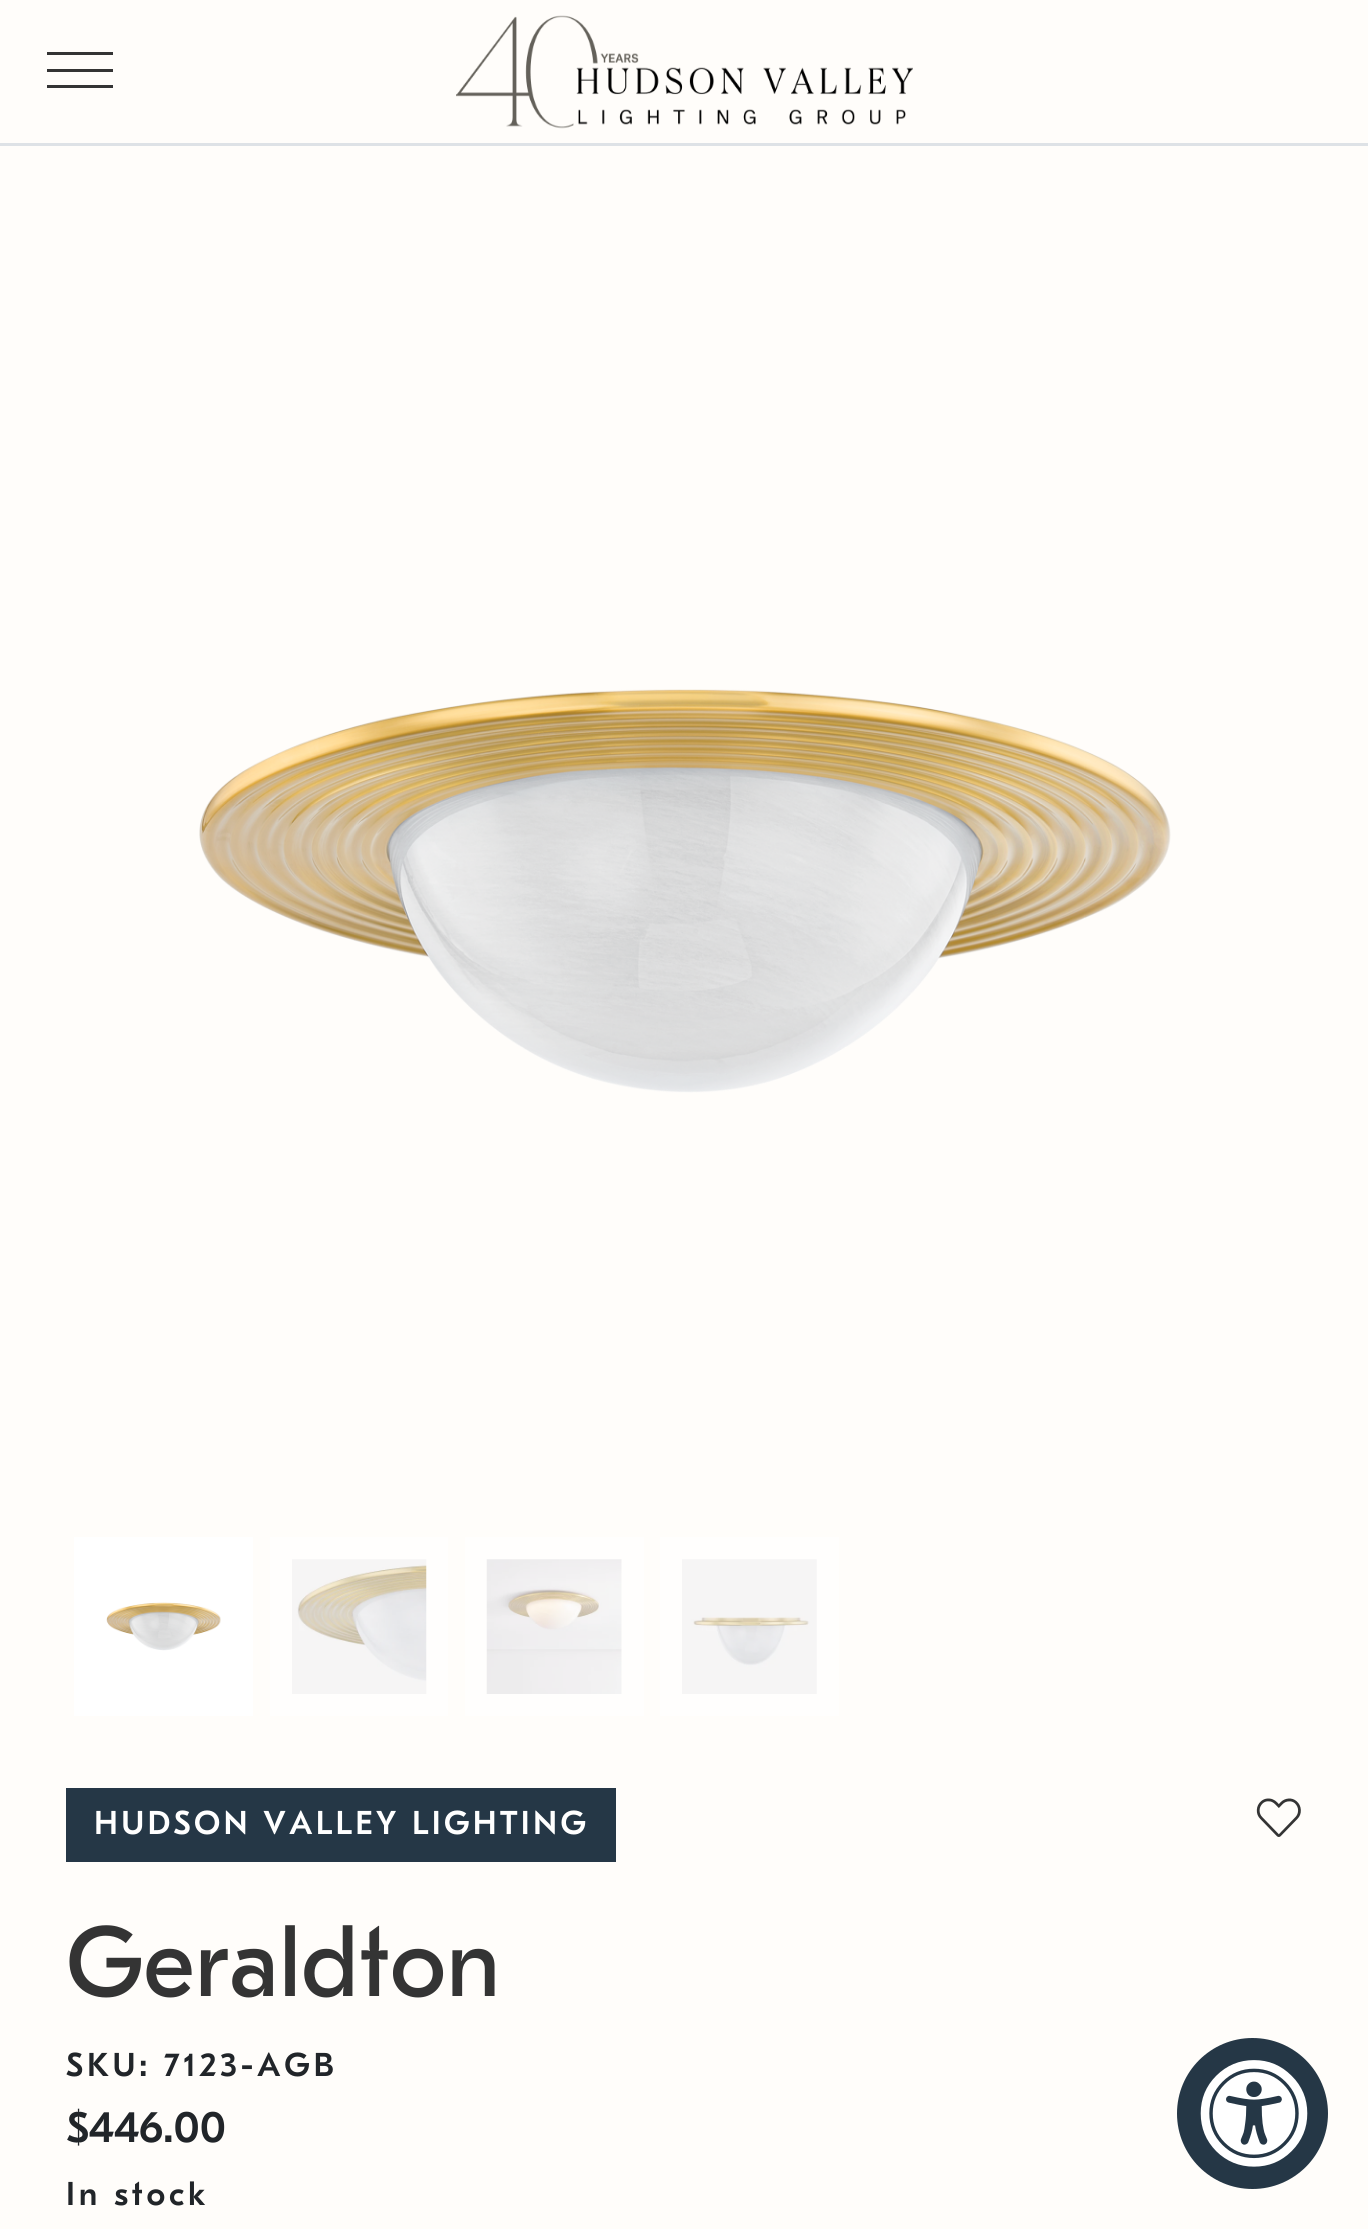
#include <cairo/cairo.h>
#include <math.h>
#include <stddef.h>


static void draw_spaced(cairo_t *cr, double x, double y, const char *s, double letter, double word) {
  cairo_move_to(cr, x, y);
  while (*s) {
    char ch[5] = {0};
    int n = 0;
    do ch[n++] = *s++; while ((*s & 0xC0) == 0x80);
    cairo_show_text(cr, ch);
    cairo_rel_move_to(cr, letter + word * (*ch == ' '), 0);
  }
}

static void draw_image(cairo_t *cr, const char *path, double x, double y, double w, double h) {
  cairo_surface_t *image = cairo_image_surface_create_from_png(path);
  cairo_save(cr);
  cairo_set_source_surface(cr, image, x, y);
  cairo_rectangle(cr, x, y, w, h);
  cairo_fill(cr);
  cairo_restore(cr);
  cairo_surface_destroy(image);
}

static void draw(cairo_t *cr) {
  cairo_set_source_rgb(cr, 1, 253 / 255.0, 250 / 255.0);
  cairo_paint(cr);
  cairo_set_source_rgb(cr, 222 / 255.0, 226 / 255.0, 230 / 255.0);
  cairo_rectangle(cr, 0, 143, 1368, 3);
  cairo_fill(cr);
  cairo_set_source_rgb(cr, 52 / 255.0, 52 / 255.0, 52 / 255.0);
  cairo_rectangle(cr, 47, 52, 66, 3);
  cairo_fill(cr);
  cairo_rectangle(cr, 47, 69, 66, 3);
  cairo_fill(cr);
  cairo_rectangle(cr, 47, 85, 66, 3);
  cairo_fill(cr);
  draw_image(cr, "images/1.png", 456, 15, 457, 114);
  draw_image(cr, "images/2.png", 199, 689, 972, 404);
  cairo_set_source_rgb(cr, 1, 1, 1);
  cairo_rectangle(cr, 74, 1537, 179, 179);
  cairo_fill(cr);
  draw_image(cr, "images/3.png", 106, 1602, 115, 49);
  cairo_set_source_rgb(cr, 1, 254 / 255.0, 253 / 255.0);
  cairo_rectangle(cr, 270, 1537, 178, 179);
  cairo_fill(cr);
  draw_image(cr, "images/4.png", 292, 1559, 135, 135);
  cairo_rectangle(cr, 465, 1537, 179, 179);
  cairo_fill(cr);
  draw_image(cr, "images/5.png", 486, 1559, 136, 135);
  cairo_rectangle(cr, 660, 1537, 179, 179);
  cairo_fill(cr);
  draw_image(cr, "images/6.png", 682, 1559, 135, 135);
  cairo_set_source_rgb(cr, 37 / 255.0, 55 / 255.0, 70 / 255.0);
  cairo_rectangle(cr, 66, 1788, 550, 74);
  cairo_fill(cr);
  draw_image(cr, "images/7.png", 1256, 1798, 45, 39);
  cairo_arc(cr, 1252.5, 2113.5, 75.5, 0, 2 * M_PI);
  cairo_fill(cr);
  draw_image(cr, "images/8.png", 1200, 2060, 108, 107);
  cairo_select_font_face(cr, "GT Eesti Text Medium", CAIRO_FONT_SLANT_NORMAL, CAIRO_FONT_WEIGHT_NORMAL);
  cairo_set_font_size(cr, 33);
  cairo_set_source_rgb(cr, 1, 1, 1);
  draw_spaced(cr, 94, 1834, "HUDSON VALLEY LIGHTING", 3.3, 0);
  cairo_select_font_face(cr, "GT Eesti Text", CAIRO_FONT_SLANT_NORMAL, CAIRO_FONT_WEIGHT_NORMAL);
  cairo_set_font_size(cr, 99);
  cairo_set_source_rgb(cr, 52 / 255.0, 52 / 255.0, 52 / 255.0);
  cairo_move_to(cr, 66, 1996);
  cairo_show_text(cr, "Geraldton");
  cairo_select_font_face(cr, "GT Eesti Text Medium", CAIRO_FONT_SLANT_NORMAL, CAIRO_FONT_WEIGHT_NORMAL);
  cairo_set_font_size(cr, 33);
  cairo_set_source_rgb(cr, 33 / 255.0, 37 / 255.0, 41 / 255.0);
  draw_spaced(cr, 66, 2076, "SKU: 7123-AGB", 3.8, 0);
  cairo_set_font_size(cr, 44);
  cairo_move_to(cr, 66, 2142);
  cairo_show_text(cr, "$446.00");
  cairo_set_font_size(cr, 33);
  draw_spaced(cr, 66, 2205, "In stock", 3.8, 0);
}

int main(void) {
  cairo_surface_t *surface = cairo_image_surface_create(CAIRO_FORMAT_RGB24, 1368, 2229);
  cairo_t *cr = cairo_create(surface);
  cairo_font_options_t *options = cairo_font_options_create();
  cairo_font_options_set_hint_metrics(options, CAIRO_HINT_METRICS_OFF);
  cairo_font_options_set_hint_style(options, CAIRO_HINT_STYLE_NONE);
  cairo_set_font_options(cr, options);
  cairo_set_miter_limit(cr, 4);
  draw(cr);
  cairo_surface_write_to_png(surface, "out.png");
  cairo_font_options_destroy(options);
  cairo_destroy(cr);
  cairo_surface_destroy(surface);
  return 0;
}
